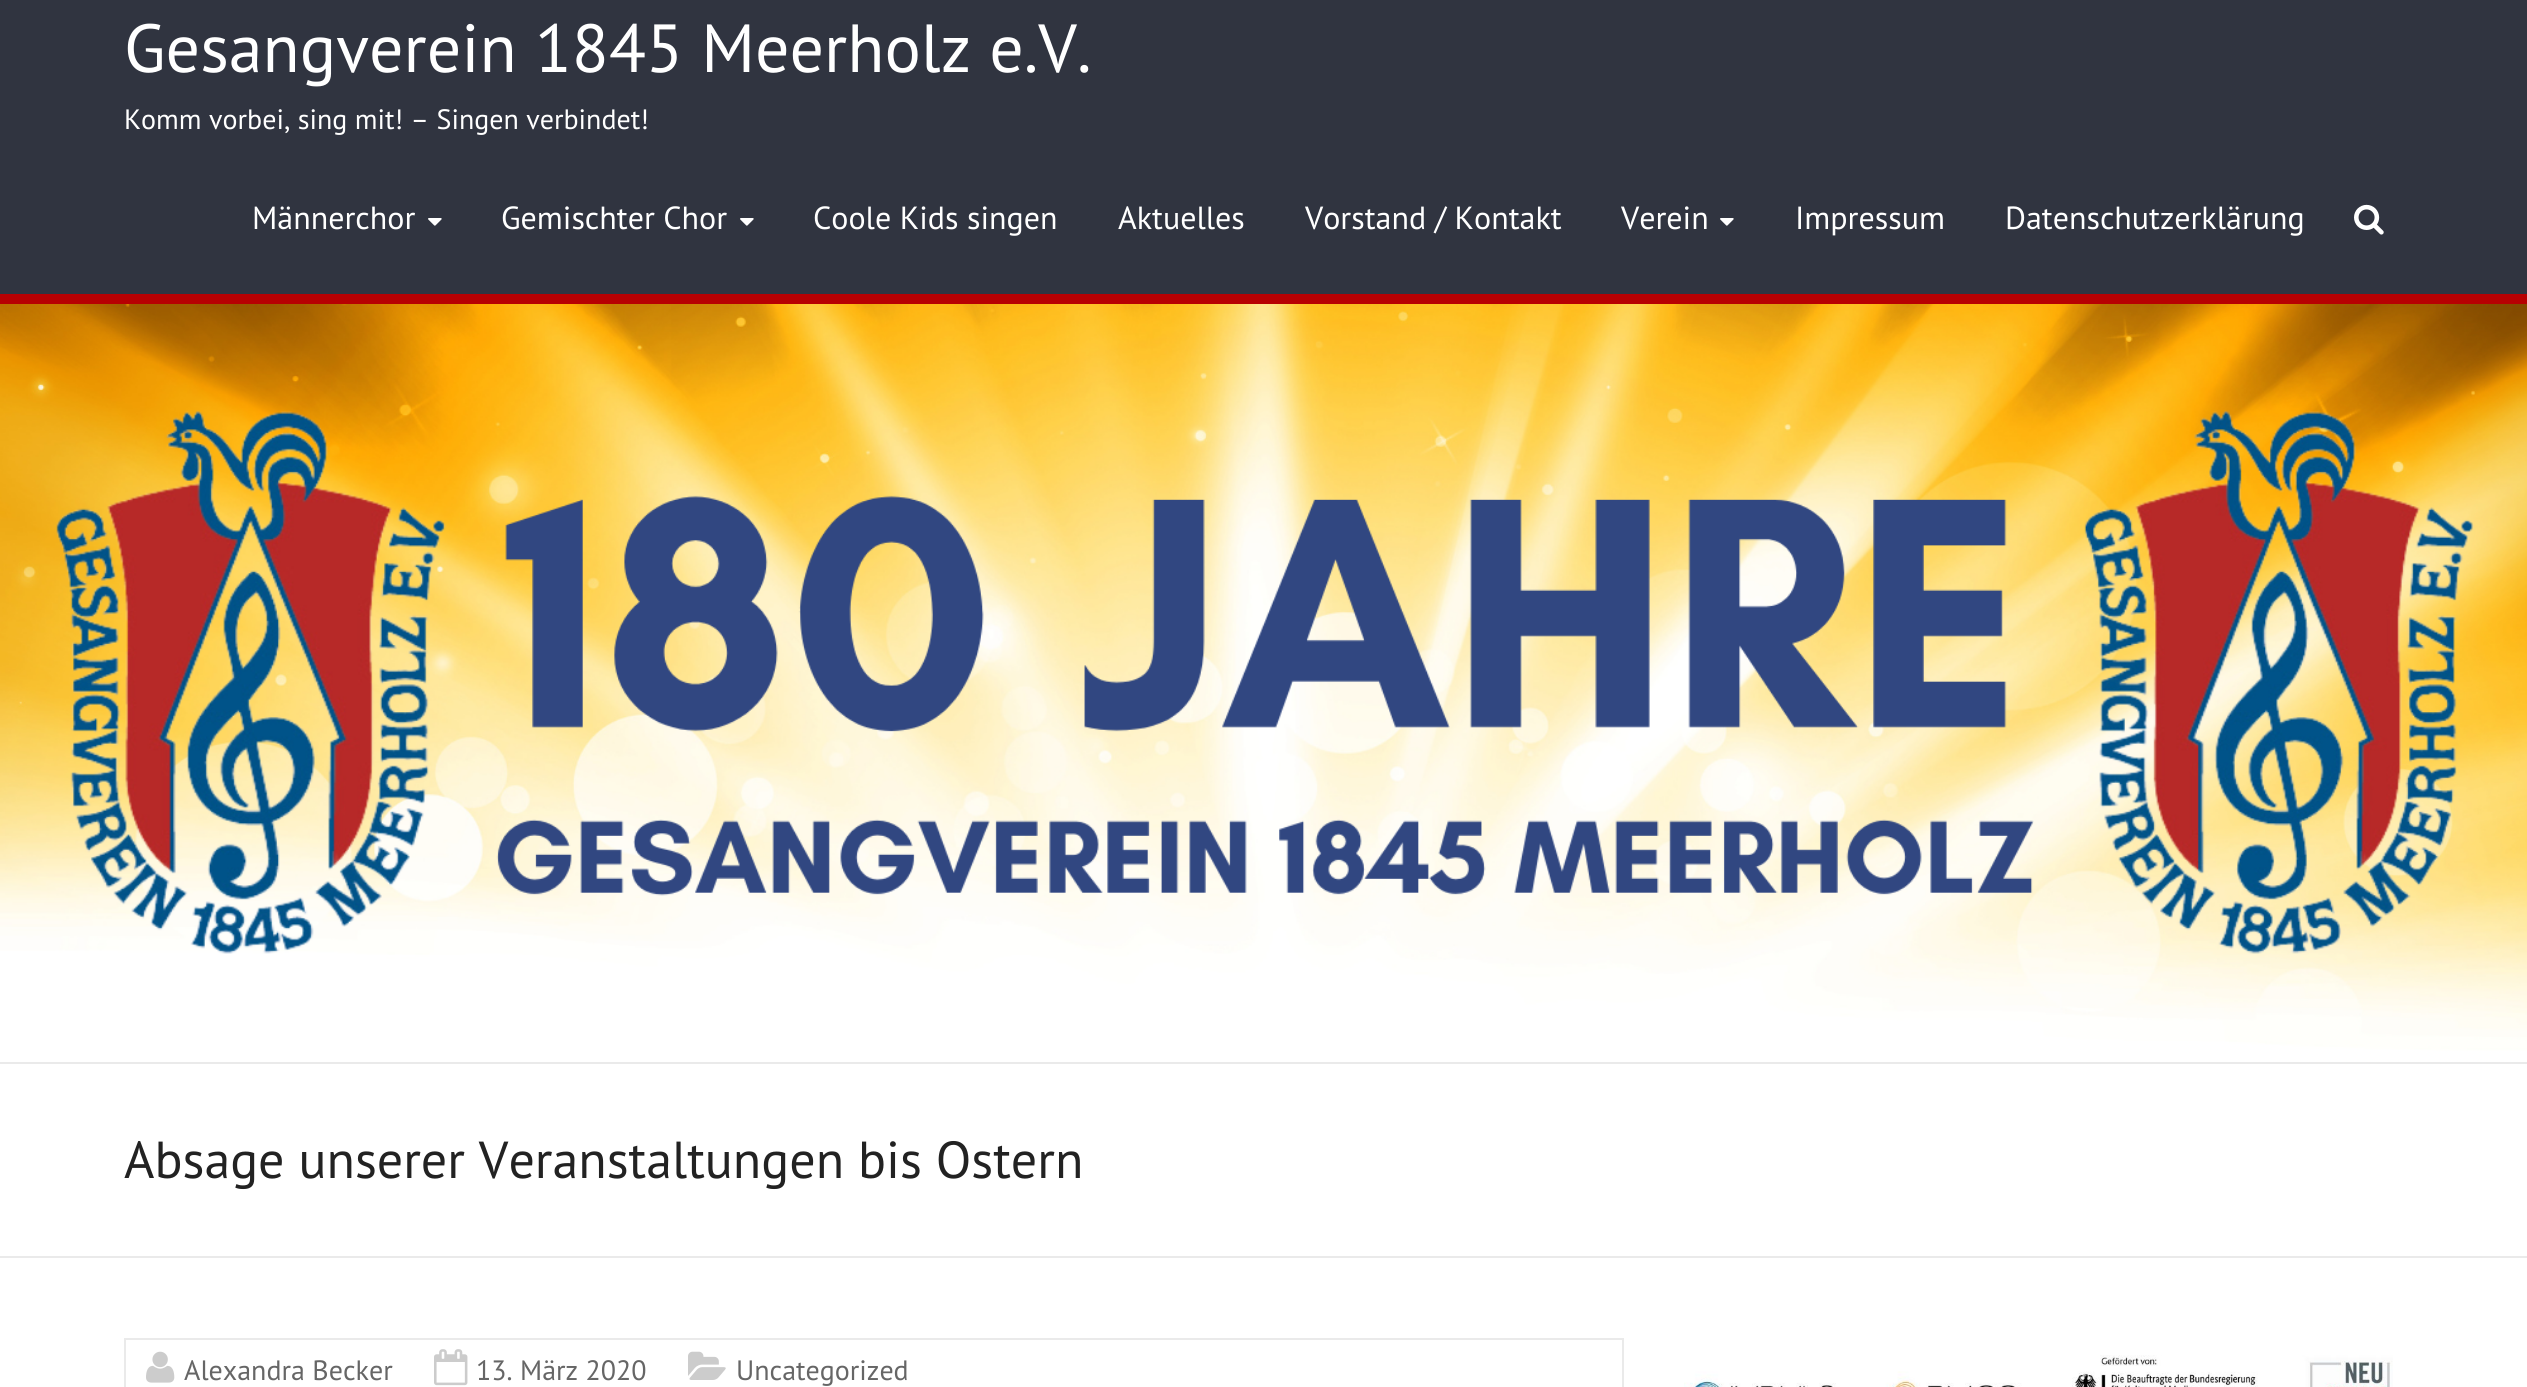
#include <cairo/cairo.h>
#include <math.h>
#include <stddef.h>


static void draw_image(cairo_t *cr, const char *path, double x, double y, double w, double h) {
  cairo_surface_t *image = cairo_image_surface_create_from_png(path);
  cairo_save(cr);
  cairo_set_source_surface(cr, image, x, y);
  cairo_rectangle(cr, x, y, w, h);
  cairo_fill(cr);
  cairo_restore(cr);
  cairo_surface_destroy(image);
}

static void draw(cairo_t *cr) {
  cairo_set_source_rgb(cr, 1, 1, 1);
  cairo_paint(cr);
  cairo_set_source_rgb(cr, 48 / 255.0, 52 / 255.0, 64 / 255.0);
  cairo_rectangle(cr, 0, 0, 2527, 294);
  cairo_fill(cr);
  cairo_set_source_rgb(cr, 183 / 255.0, 0, 2 / 255.0);
  cairo_rectangle(cr, 0, 294, 2527, 10);
  cairo_fill(cr);
  draw_image(cr, "images/1.png", 428, 218, 14, 8);
  draw_image(cr, "images/1.png", 740, 218, 14, 8);
  draw_image(cr, "images/1.png", 1720, 218, 14, 8);
  draw_image(cr, "images/2.png", 2354, 204, 30, 31);
  draw_image(cr, "images/3.png", 0, 304, 2527, 758);
  cairo_set_source_rgb(cr, 234 / 255.0, 234 / 255.0, 234 / 255.0);
  cairo_rectangle(cr, 0, 1062, 2527, 2);
  cairo_fill(cr);
  cairo_rectangle(cr, 0, 1256, 2527, 2);
  cairo_fill(cr);
  cairo_rectangle(cr, 125, 1339, 1498, 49);
  cairo_stroke(cr);
  draw_image(cr, "images/4.png", 146, 1351, 29, 32);
  draw_image(cr, "images/5.png", 434, 1349, 34, 37);
  draw_image(cr, "images/6.png", 688, 1351, 38, 29);
  draw_image(cr, "images/7.png", 1684, 1355, 709, 32);
  cairo_select_font_face(cr, "PT Sans", CAIRO_FONT_SLANT_NORMAL, CAIRO_FONT_WEIGHT_NORMAL);
  cairo_set_font_size(cr, 68);
  cairo_set_source_rgb(cr, 1, 1, 1);
  cairo_move_to(cr, 124, 72);
  cairo_show_text(cr, "Gesangverein 1845 Meerholz e.V.");
  cairo_set_font_size(cr, 28);
  cairo_move_to(cr, 124, 129);
  cairo_show_text(cr, "Komm vorbei, sing mit! – Singen verbindet!");
  cairo_set_font_size(cr, 32);
  cairo_move_to(cr, 252, 229);
  cairo_show_text(cr, "Männerchor");
  cairo_move_to(cr, 501, 229);
  cairo_show_text(cr, "Gemischter Chor");
  cairo_move_to(cr, 813, 229);
  cairo_show_text(cr, "Coole Kids singen");
  cairo_move_to(cr, 1118, 229);
  cairo_show_text(cr, "Aktuelles");
  cairo_move_to(cr, 1305, 229);
  cairo_show_text(cr, "Vorstand / Kontakt");
  cairo_move_to(cr, 1621, 229);
  cairo_show_text(cr, "Verein");
  cairo_move_to(cr, 1795, 229);
  cairo_show_text(cr, "Impressum");
  cairo_move_to(cr, 2005, 229);
  cairo_show_text(cr, "Datenschutzerklärung");
  cairo_set_font_size(cr, 52);
  cairo_set_source_rgb(cr, 34 / 255.0, 34 / 255.0, 34 / 255.0);
  cairo_move_to(cr, 124, 1178);
  cairo_show_text(cr, "Absage unserer Veranstaltungen bis Ostern");
  cairo_set_font_size(cr, 28);
  cairo_set_source_rgb(cr, 102 / 255.0, 102 / 255.0, 102 / 255.0);
  cairo_move_to(cr, 184, 1380);
  cairo_show_text(cr, "Alexandra Becker");
  cairo_move_to(cr, 476, 1380);
  cairo_show_text(cr, "13. März 2020");
  cairo_move_to(cr, 736, 1380);
  cairo_show_text(cr, "Uncategorized");
}

int main(void) {
  cairo_surface_t *surface = cairo_image_surface_create(CAIRO_FORMAT_RGB24, 2527, 1387);
  cairo_t *cr = cairo_create(surface);
  cairo_font_options_t *options = cairo_font_options_create();
  cairo_font_options_set_hint_metrics(options, CAIRO_HINT_METRICS_OFF);
  cairo_font_options_set_hint_style(options, CAIRO_HINT_STYLE_NONE);
  cairo_set_font_options(cr, options);
  cairo_set_miter_limit(cr, 4);
  draw(cr);
  cairo_surface_write_to_png(surface, "out.png");
  cairo_font_options_destroy(options);
  cairo_destroy(cr);
  cairo_surface_destroy(surface);
  return 0;
}
